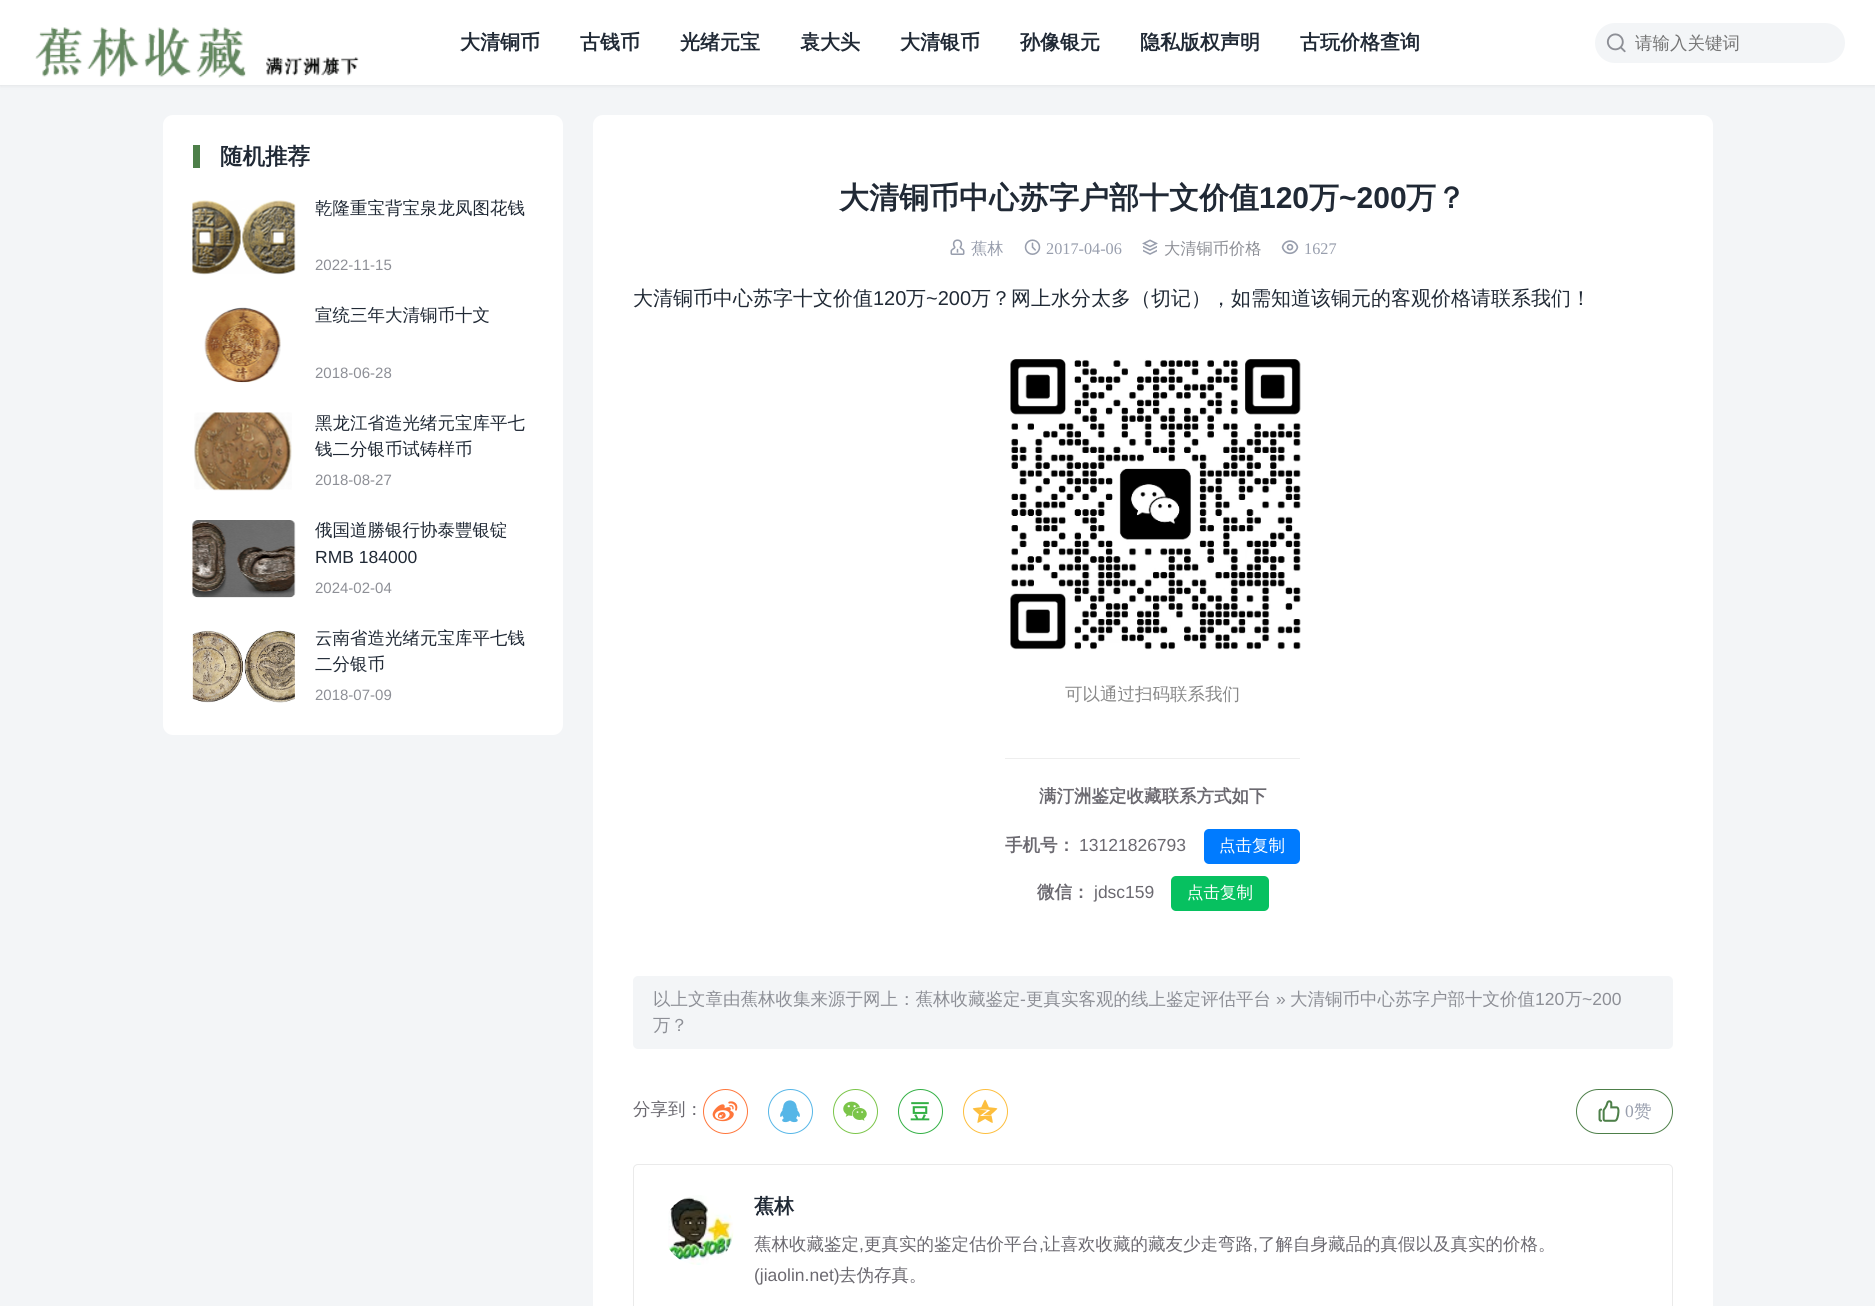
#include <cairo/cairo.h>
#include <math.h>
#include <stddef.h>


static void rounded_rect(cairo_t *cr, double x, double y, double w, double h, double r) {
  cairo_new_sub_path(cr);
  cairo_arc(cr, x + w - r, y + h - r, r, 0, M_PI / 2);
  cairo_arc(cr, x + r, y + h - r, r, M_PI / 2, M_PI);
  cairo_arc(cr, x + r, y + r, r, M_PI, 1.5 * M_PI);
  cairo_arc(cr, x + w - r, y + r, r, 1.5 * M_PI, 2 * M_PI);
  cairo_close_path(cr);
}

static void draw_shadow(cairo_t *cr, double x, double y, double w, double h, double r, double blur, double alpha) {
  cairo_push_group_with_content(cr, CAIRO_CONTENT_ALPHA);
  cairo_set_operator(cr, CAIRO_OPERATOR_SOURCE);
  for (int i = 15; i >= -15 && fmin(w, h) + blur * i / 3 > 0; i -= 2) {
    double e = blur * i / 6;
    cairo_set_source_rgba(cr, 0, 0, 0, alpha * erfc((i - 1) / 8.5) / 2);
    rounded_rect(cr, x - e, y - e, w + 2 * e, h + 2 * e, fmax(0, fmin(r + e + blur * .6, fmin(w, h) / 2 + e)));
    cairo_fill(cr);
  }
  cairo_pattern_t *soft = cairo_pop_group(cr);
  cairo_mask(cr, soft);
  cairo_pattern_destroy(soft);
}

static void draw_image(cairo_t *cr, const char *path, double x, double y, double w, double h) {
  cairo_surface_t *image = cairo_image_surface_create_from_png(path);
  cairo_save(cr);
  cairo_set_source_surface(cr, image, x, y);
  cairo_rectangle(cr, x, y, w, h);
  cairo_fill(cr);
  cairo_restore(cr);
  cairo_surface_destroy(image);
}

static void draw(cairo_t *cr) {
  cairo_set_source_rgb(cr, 243 / 255.0, 245 / 255.0, 247 / 255.0);
  cairo_paint(cr);
  cairo_set_source_rgb(cr, 0, 0, 0);
  draw_shadow(cr, 0, 0, 1875, 85, 0, 2.5, 0.1);
  cairo_set_source_rgb(cr, 1, 1, 1);
  cairo_rectangle(cr, 0, 0, 1875, 85);
  cairo_fill(cr);
  draw_image(cr, "images/1.png", 35, 27, 324, 51);
  cairo_set_source_rgb(cr, 243 / 255.0, 245 / 255.0, 247 / 255.0);
  rounded_rect(cr, 1595, 23, 250, 40, 20);
  cairo_fill(cr);
  draw_image(cr, "images/2.png", 1606, 33, 20, 20);
  cairo_set_source_rgb(cr, 1, 1, 1);
  rounded_rect(cr, 163, 115, 400, 620, 10);
  cairo_fill(cr);
  cairo_set_source_rgb(cr, 77 / 255.0, 127 / 255.0, 73 / 255.0);
  cairo_rectangle(cr, 193, 145, 7, 23);
  cairo_fill(cr);
  draw_image(cr, "images/3.png", 192, 200, 104, 75);
  draw_image(cr, "images/4.png", 204, 307, 77, 76);
  draw_image(cr, "images/5.png", 194, 412, 98, 79);
  draw_image(cr, "images/6.png", 192, 520, 104, 78);
  draw_image(cr, "images/7.png", 192, 630, 103, 73);
  cairo_set_source_rgb(cr, 1, 1, 1);
  rounded_rect(cr, 593, 115, 1120, 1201, 10);
  cairo_fill(cr);
  draw_image(cr, "images/8.png", 950, 239, 15, 16);
  draw_image(cr, "images/9.png", 1024, 239, 17, 16);
  draw_image(cr, "images/10.png", 1142, 239, 16, 16);
  draw_image(cr, "images/11.png", 1281, 240, 18, 15);
  draw_image(cr, "images/12.png", 1010, 359, 291, 291);
  cairo_set_source_rgb(cr, 238 / 255.0, 238 / 255.0, 238 / 255.0);
  cairo_rectangle(cr, 1005, 758, 295, 1);
  cairo_fill(cr);
  cairo_set_source_rgb(cr, 0, 123 / 255.0, 1);
  rounded_rect(cr, 1204, 829, 96, 35, 5);
  cairo_fill(cr);
  cairo_set_source_rgb(cr, 7 / 255.0, 193 / 255.0, 96 / 255.0);
  rounded_rect(cr, 1171, 876, 98, 35, 5);
  cairo_fill(cr);
  cairo_set_source_rgb(cr, 243 / 255.0, 245 / 255.0, 247 / 255.0);
  rounded_rect(cr, 633, 976, 1040, 73, 5);
  cairo_fill(cr);
  cairo_arc(cr, 725.5, 1111.5, 22, 0, 2 * M_PI);
  cairo_set_source_rgb(cr, 1, 118 / 255.0, 59 / 255.0);
  cairo_set_line_width(cr, 1);
  cairo_stroke(cr);
  draw_image(cr, "images/13.png", 712, 1101, 26, 21);
  cairo_arc(cr, 790.5, 1111.5, 22, 0, 2 * M_PI);
  cairo_set_source_rgb(cr, 86 / 255.0, 182 / 255.0, 231 / 255.0);
  cairo_stroke(cr);
  draw_image(cr, "images/14.png", 780, 1100, 20, 23);
  cairo_arc(cr, 855.5, 1111.5, 22, 0, 2 * M_PI);
  cairo_set_source_rgb(cr, 123 / 255.0, 197 / 255.0, 73 / 255.0);
  cairo_stroke(cr);
  draw_image(cr, "images/15.png", 843, 1101, 24, 20);
  cairo_arc(cr, 920.5, 1111.5, 22, 0, 2 * M_PI);
  cairo_set_source_rgb(cr, 51 / 255.0, 176 / 255.0, 69 / 255.0);
  cairo_stroke(cr);
  draw_image(cr, "images/16.png", 910, 1102, 20, 19);
  cairo_arc(cr, 985.5, 1111.5, 22, 0, 2 * M_PI);
  cairo_set_source_rgb(cr, 253 / 255.0, 190 / 255.0, 61 / 255.0);
  cairo_stroke(cr);
  draw_image(cr, "images/17.png", 972, 1099, 26, 24);
  rounded_rect(cr, 1576.5, 1089.5, 96, 44, 22);
  cairo_set_source_rgb(cr, 77 / 255.0, 127 / 255.0, 73 / 255.0);
  cairo_stroke(cr);
  draw_image(cr, "images/18.png", 1598, 1100, 22, 22);
  rounded_rect(cr, 633.5, 1164.5, 1039, 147, 4.5);
  cairo_set_source_rgb(cr, 234 / 255.0, 234 / 255.0, 234 / 255.0);
  cairo_stroke(cr);
  draw_image(cr, "images/19.png", 668, 1195, 66, 70);
  cairo_select_font_face(cr, "WenQuanYi Zen Hei", CAIRO_FONT_SLANT_NORMAL, CAIRO_FONT_WEIGHT_BOLD);
  cairo_set_font_size(cr, 20);
  cairo_set_source_rgb(cr, 32 / 255.0, 41 / 255.0, 53 / 255.0);
  cairo_move_to(cr, 460, 49);
  cairo_show_text(cr, "大清铜币");
  cairo_move_to(cr, 580, 49);
  cairo_show_text(cr, "古钱币");
  cairo_move_to(cr, 680, 49);
  cairo_show_text(cr, "光绪元宝");
  cairo_move_to(cr, 800, 49);
  cairo_show_text(cr, "袁大头");
  cairo_move_to(cr, 900, 49);
  cairo_show_text(cr, "大清银币");
  cairo_move_to(cr, 1020, 49);
  cairo_show_text(cr, "孙像银元");
  cairo_move_to(cr, 1140, 49);
  cairo_show_text(cr, "隐私版权声明");
  cairo_move_to(cr, 1300, 49);
  cairo_show_text(cr, "古玩价格查询");
  cairo_select_font_face(cr, "WenQuanYi Zen Hei Medium", CAIRO_FONT_SLANT_NORMAL, CAIRO_FONT_WEIGHT_NORMAL);
  cairo_set_font_size(cr, 17.5);
  cairo_set_source_rgb(cr, 117 / 255.0, 117 / 255.0, 117 / 255.0);
  cairo_move_to(cr, 1635, 49);
  cairo_show_text(cr, "请输入关键词");
  cairo_select_font_face(cr, "WenQuanYi Zen Hei", CAIRO_FONT_SLANT_NORMAL, CAIRO_FONT_WEIGHT_BOLD);
  cairo_set_font_size(cr, 22.5);
  cairo_set_source_rgb(cr, 32 / 255.0, 41 / 255.0, 53 / 255.0);
  cairo_move_to(cr, 220, 164);
  cairo_show_text(cr, "随机推荐");
  cairo_select_font_face(cr, "WenQuanYi Zen Hei Medium", CAIRO_FONT_SLANT_NORMAL, CAIRO_FONT_WEIGHT_NORMAL);
  cairo_set_font_size(cr, 17.5);
  cairo_move_to(cr, 315, 214);
  cairo_show_text(cr, "乾隆重宝背宝泉龙凤图花钱");
  cairo_select_font_face(cr, "Liberation Sans", CAIRO_FONT_SLANT_NORMAL, CAIRO_FONT_WEIGHT_NORMAL);
  cairo_set_font_size(cr, 15);
  cairo_set_source_rgb(cr, 141 / 255.0, 143 / 255.0, 150 / 255.0);
  cairo_move_to(cr, 315, 270);
  cairo_show_text(cr, "2022-11-15");
  cairo_select_font_face(cr, "WenQuanYi Zen Hei Medium", CAIRO_FONT_SLANT_NORMAL, CAIRO_FONT_WEIGHT_NORMAL);
  cairo_set_font_size(cr, 17.5);
  cairo_set_source_rgb(cr, 32 / 255.0, 41 / 255.0, 53 / 255.0);
  cairo_move_to(cr, 315, 321);
  cairo_show_text(cr, "宣统三年大清铜币十文");
  cairo_select_font_face(cr, "Liberation Sans", CAIRO_FONT_SLANT_NORMAL, CAIRO_FONT_WEIGHT_NORMAL);
  cairo_set_font_size(cr, 15);
  cairo_set_source_rgb(cr, 141 / 255.0, 143 / 255.0, 150 / 255.0);
  cairo_move_to(cr, 315, 378);
  cairo_show_text(cr, "2018-06-28");
  cairo_select_font_face(cr, "WenQuanYi Zen Hei Medium", CAIRO_FONT_SLANT_NORMAL, CAIRO_FONT_WEIGHT_NORMAL);
  cairo_set_font_size(cr, 17.5);
  cairo_set_source_rgb(cr, 32 / 255.0, 41 / 255.0, 53 / 255.0);
  cairo_move_to(cr, 315, 429);
  cairo_show_text(cr, "黑龙江省造光绪元宝库平七");
  cairo_move_to(cr, 315, 455);
  cairo_show_text(cr, "钱二分银币试铸样币");
  cairo_select_font_face(cr, "Liberation Sans", CAIRO_FONT_SLANT_NORMAL, CAIRO_FONT_WEIGHT_NORMAL);
  cairo_set_font_size(cr, 15);
  cairo_set_source_rgb(cr, 141 / 255.0, 143 / 255.0, 150 / 255.0);
  cairo_move_to(cr, 315, 485);
  cairo_show_text(cr, "2018-08-27");
  cairo_select_font_face(cr, "WenQuanYi Zen Hei Medium", CAIRO_FONT_SLANT_NORMAL, CAIRO_FONT_WEIGHT_NORMAL);
  cairo_set_font_size(cr, 17.5);
  cairo_set_source_rgb(cr, 32 / 255.0, 41 / 255.0, 53 / 255.0);
  cairo_move_to(cr, 315, 536);
  cairo_show_text(cr, "俄国道勝银行协泰豐银锭");
  cairo_select_font_face(cr, "Liberation Sans", CAIRO_FONT_SLANT_NORMAL, CAIRO_FONT_WEIGHT_NORMAL);
  cairo_move_to(cr, 315, 563);
  cairo_show_text(cr, "RMB 184000");
  cairo_set_font_size(cr, 15);
  cairo_set_source_rgb(cr, 141 / 255.0, 143 / 255.0, 150 / 255.0);
  cairo_move_to(cr, 315, 593);
  cairo_show_text(cr, "2024-02-04");
  cairo_select_font_face(cr, "WenQuanYi Zen Hei Medium", CAIRO_FONT_SLANT_NORMAL, CAIRO_FONT_WEIGHT_NORMAL);
  cairo_set_font_size(cr, 17.5);
  cairo_set_source_rgb(cr, 32 / 255.0, 41 / 255.0, 53 / 255.0);
  cairo_move_to(cr, 315, 644);
  cairo_show_text(cr, "云南省造光绪元宝库平七钱");
  cairo_move_to(cr, 315, 670);
  cairo_show_text(cr, "二分银币");
  cairo_select_font_face(cr, "Liberation Sans", CAIRO_FONT_SLANT_NORMAL, CAIRO_FONT_WEIGHT_NORMAL);
  cairo_set_font_size(cr, 15);
  cairo_set_source_rgb(cr, 141 / 255.0, 143 / 255.0, 150 / 255.0);
  cairo_move_to(cr, 315, 700);
  cairo_show_text(cr, "2018-07-09");
  cairo_select_font_face(cr, "WenQuanYi Zen Hei", CAIRO_FONT_SLANT_NORMAL, CAIRO_FONT_WEIGHT_BOLD);
  cairo_set_font_size(cr, 30);
  cairo_set_source_rgb(cr, 32 / 255.0, 41 / 255.0, 53 / 255.0);
  cairo_move_to(cr, 839, 208);
  cairo_show_text(cr, "大清铜币中心苏字户部十文价值");
  cairo_select_font_face(cr, "Liberation Sans", CAIRO_FONT_SLANT_NORMAL, CAIRO_FONT_WEIGHT_BOLD);
  cairo_move_to(cr, 1259, 208);
  cairo_show_text(cr, "120");
  cairo_select_font_face(cr, "WenQuanYi Zen Hei", CAIRO_FONT_SLANT_NORMAL, CAIRO_FONT_WEIGHT_BOLD);
  cairo_move_to(cr, 1309, 208);
  cairo_show_text(cr, "万");
  cairo_select_font_face(cr, "Liberation Sans", CAIRO_FONT_SLANT_NORMAL, CAIRO_FONT_WEIGHT_BOLD);
  cairo_move_to(cr, 1339, 208);
  cairo_show_text(cr, "~200");
  cairo_select_font_face(cr, "WenQuanYi Zen Hei", CAIRO_FONT_SLANT_NORMAL, CAIRO_FONT_WEIGHT_BOLD);
  cairo_move_to(cr, 1406, 208);
  cairo_show_text(cr, "万？");
  cairo_select_font_face(cr, "WenQuanYi Zen Hei Medium", CAIRO_FONT_SLANT_NORMAL, CAIRO_FONT_WEIGHT_NORMAL);
  cairo_set_font_size(cr, 16.25);
  cairo_set_source_rgb(cr, 152 / 255.0, 158 / 255.0, 173 / 255.0);
  cairo_move_to(cr, 971, 254);
  cairo_show_text(cr, "蕉林");
  cairo_select_font_face(cr, "Liberation Serif", CAIRO_FONT_SLANT_NORMAL, CAIRO_FONT_WEIGHT_NORMAL);
  cairo_move_to(cr, 1046, 254);
  cairo_show_text(cr, "2017-04-06");
  cairo_select_font_face(cr, "WenQuanYi Zen Hei Medium", CAIRO_FONT_SLANT_NORMAL, CAIRO_FONT_WEIGHT_NORMAL);
  cairo_set_source_rgb(cr, 141 / 255.0, 143 / 255.0, 150 / 255.0);
  cairo_move_to(cr, 1164, 254);
  cairo_show_text(cr, "大清铜币价格");
  cairo_select_font_face(cr, "Liberation Serif", CAIRO_FONT_SLANT_NORMAL, CAIRO_FONT_WEIGHT_NORMAL);
  cairo_set_source_rgb(cr, 152 / 255.0, 158 / 255.0, 173 / 255.0);
  cairo_move_to(cr, 1304, 254);
  cairo_show_text(cr, "1627");
  cairo_select_font_face(cr, "WenQuanYi Zen Hei Medium", CAIRO_FONT_SLANT_NORMAL, CAIRO_FONT_WEIGHT_NORMAL);
  cairo_set_font_size(cr, 20);
  cairo_set_source_rgb(cr, 32 / 255.0, 41 / 255.0, 53 / 255.0);
  cairo_move_to(cr, 633, 305);
  cairo_show_text(cr, "大清铜币中心苏字十文价值");
  cairo_select_font_face(cr, "Liberation Sans", CAIRO_FONT_SLANT_NORMAL, CAIRO_FONT_WEIGHT_NORMAL);
  cairo_move_to(cr, 873, 305);
  cairo_show_text(cr, "120");
  cairo_select_font_face(cr, "WenQuanYi Zen Hei Medium", CAIRO_FONT_SLANT_NORMAL, CAIRO_FONT_WEIGHT_NORMAL);
  cairo_move_to(cr, 906, 305);
  cairo_show_text(cr, "万");
  cairo_select_font_face(cr, "Liberation Sans", CAIRO_FONT_SLANT_NORMAL, CAIRO_FONT_WEIGHT_NORMAL);
  cairo_move_to(cr, 926, 305);
  cairo_show_text(cr, "~200");
  cairo_select_font_face(cr, "WenQuanYi Zen Hei Medium", CAIRO_FONT_SLANT_NORMAL, CAIRO_FONT_WEIGHT_NORMAL);
  cairo_move_to(cr, 971, 305);
  cairo_show_text(cr, "万？网上水分太多（切记），如需知道该铜元的客观价格请联系我们！");
  cairo_set_font_size(cr, 17.5);
  cairo_set_source_rgb(cr, 136 / 255.0, 136 / 255.0, 136 / 255.0);
  cairo_move_to(cr, 1065, 700);
  cairo_show_text(cr, "可以通过扫码联系我们");
  cairo_select_font_face(cr, "WenQuanYi Zen Hei", CAIRO_FONT_SLANT_NORMAL, CAIRO_FONT_WEIGHT_BOLD);
  cairo_set_source_rgb(cr, 107 / 255.0, 105 / 255.0, 112 / 255.0);
  cairo_move_to(cr, 1039, 802);
  cairo_show_text(cr, "满汀洲鉴定收藏联系方式如下");
  cairo_move_to(cr, 1005, 851);
  cairo_show_text(cr, "手机号：");
  cairo_select_font_face(cr, "Liberation Sans", CAIRO_FONT_SLANT_NORMAL, CAIRO_FONT_WEIGHT_NORMAL);
  cairo_move_to(cr, 1079, 851);
  cairo_show_text(cr, "13121826793");
  cairo_select_font_face(cr, "WenQuanYi Zen Hei Medium", CAIRO_FONT_SLANT_NORMAL, CAIRO_FONT_WEIGHT_NORMAL);
  cairo_set_font_size(cr, 16.5);
  cairo_set_source_rgb(cr, 1, 1, 1);
  cairo_move_to(cr, 1219, 851);
  cairo_show_text(cr, "点击复制");
  cairo_select_font_face(cr, "WenQuanYi Zen Hei", CAIRO_FONT_SLANT_NORMAL, CAIRO_FONT_WEIGHT_BOLD);
  cairo_set_font_size(cr, 17.5);
  cairo_set_source_rgb(cr, 107 / 255.0, 105 / 255.0, 112 / 255.0);
  cairo_move_to(cr, 1037, 898);
  cairo_show_text(cr, "微信：");
  cairo_select_font_face(cr, "Liberation Sans", CAIRO_FONT_SLANT_NORMAL, CAIRO_FONT_WEIGHT_NORMAL);
  cairo_move_to(cr, 1094, 898);
  cairo_show_text(cr, "jdsc159");
  cairo_select_font_face(cr, "WenQuanYi Zen Hei Medium", CAIRO_FONT_SLANT_NORMAL, CAIRO_FONT_WEIGHT_NORMAL);
  cairo_set_font_size(cr, 16.5);
  cairo_set_source_rgb(cr, 1, 1, 1);
  cairo_move_to(cr, 1187, 898);
  cairo_show_text(cr, "点击复制");
  cairo_set_font_size(cr, 17.5);
  cairo_set_source_rgb(cr, 141 / 255.0, 143 / 255.0, 150 / 255.0);
  cairo_move_to(cr, 653, 1005);
  cairo_show_text(cr, "以上文章由蕉林收集来源于网上：蕉林收藏鉴定");
  cairo_select_font_face(cr, "Liberation Sans", CAIRO_FONT_SLANT_NORMAL, CAIRO_FONT_WEIGHT_NORMAL);
  cairo_move_to(cr, 1020, 1005);
  cairo_show_text(cr, "-");
  cairo_select_font_face(cr, "WenQuanYi Zen Hei Medium", CAIRO_FONT_SLANT_NORMAL, CAIRO_FONT_WEIGHT_NORMAL);
  cairo_move_to(cr, 1026, 1005);
  cairo_show_text(cr, "更真实客观的线上鉴定评估平台");
  cairo_select_font_face(cr, "Liberation Sans", CAIRO_FONT_SLANT_NORMAL, CAIRO_FONT_WEIGHT_NORMAL);
  cairo_move_to(cr, 1276, 1005);
  cairo_show_text(cr, "»");
  cairo_select_font_face(cr, "WenQuanYi Zen Hei Medium", CAIRO_FONT_SLANT_NORMAL, CAIRO_FONT_WEIGHT_NORMAL);
  cairo_move_to(cr, 1290, 1005);
  cairo_show_text(cr, "大清铜币中心苏字户部十文价值");
  cairo_select_font_face(cr, "Liberation Sans", CAIRO_FONT_SLANT_NORMAL, CAIRO_FONT_WEIGHT_NORMAL);
  cairo_move_to(cr, 1535, 1005);
  cairo_show_text(cr, "120");
  cairo_select_font_face(cr, "WenQuanYi Zen Hei Medium", CAIRO_FONT_SLANT_NORMAL, CAIRO_FONT_WEIGHT_NORMAL);
  cairo_move_to(cr, 1565, 1005);
  cairo_show_text(cr, "万");
  cairo_select_font_face(cr, "Liberation Sans", CAIRO_FONT_SLANT_NORMAL, CAIRO_FONT_WEIGHT_NORMAL);
  cairo_move_to(cr, 1582, 1005);
  cairo_show_text(cr, "~200");
  cairo_select_font_face(cr, "WenQuanYi Zen Hei Medium", CAIRO_FONT_SLANT_NORMAL, CAIRO_FONT_WEIGHT_NORMAL);
  cairo_move_to(cr, 653, 1031);
  cairo_show_text(cr, "万？");
  cairo_set_source_rgb(cr, 107 / 255.0, 105 / 255.0, 112 / 255.0);
  cairo_move_to(cr, 633, 1115);
  cairo_show_text(cr, "分享到：");
  cairo_select_font_face(cr, "Liberation Serif", CAIRO_FONT_SLANT_NORMAL, CAIRO_FONT_WEIGHT_NORMAL);
  cairo_set_source_rgb(cr, 152 / 255.0, 158 / 255.0, 173 / 255.0);
  cairo_move_to(cr, 1625, 1117);
  cairo_show_text(cr, "0");
  cairo_select_font_face(cr, "WenQuanYi Zen Hei Medium", CAIRO_FONT_SLANT_NORMAL, CAIRO_FONT_WEIGHT_NORMAL);
  cairo_move_to(cr, 1634, 1117);
  cairo_show_text(cr, "赞");
  cairo_select_font_face(cr, "WenQuanYi Zen Hei", CAIRO_FONT_SLANT_NORMAL, CAIRO_FONT_WEIGHT_BOLD);
  cairo_set_font_size(cr, 20);
  cairo_set_source_rgb(cr, 32 / 255.0, 41 / 255.0, 53 / 255.0);
  cairo_move_to(cr, 754, 1213);
  cairo_show_text(cr, "蕉林");
  cairo_select_font_face(cr, "WenQuanYi Zen Hei Medium", CAIRO_FONT_SLANT_NORMAL, CAIRO_FONT_WEIGHT_NORMAL);
  cairo_set_font_size(cr, 17.5);
  cairo_set_source_rgb(cr, 107 / 255.0, 105 / 255.0, 112 / 255.0);
  cairo_move_to(cr, 754, 1250);
  cairo_show_text(cr, "蕉林收藏鉴定");
  cairo_select_font_face(cr, "Liberation Sans", CAIRO_FONT_SLANT_NORMAL, CAIRO_FONT_WEIGHT_NORMAL);
  cairo_move_to(cr, 859, 1250);
  cairo_show_text(cr, ",");
  cairo_select_font_face(cr, "WenQuanYi Zen Hei Medium", CAIRO_FONT_SLANT_NORMAL, CAIRO_FONT_WEIGHT_NORMAL);
  cairo_move_to(cr, 864, 1250);
  cairo_show_text(cr, "更真实的鉴定估价平台");
  cairo_select_font_face(cr, "Liberation Sans", CAIRO_FONT_SLANT_NORMAL, CAIRO_FONT_WEIGHT_NORMAL);
  cairo_move_to(cr, 1039, 1250);
  cairo_show_text(cr, ",");
  cairo_select_font_face(cr, "WenQuanYi Zen Hei Medium", CAIRO_FONT_SLANT_NORMAL, CAIRO_FONT_WEIGHT_NORMAL);
  cairo_move_to(cr, 1043, 1250);
  cairo_show_text(cr, "让喜欢收藏的藏友少走弯路");
  cairo_select_font_face(cr, "Liberation Sans", CAIRO_FONT_SLANT_NORMAL, CAIRO_FONT_WEIGHT_NORMAL);
  cairo_move_to(cr, 1253, 1250);
  cairo_show_text(cr, ",");
  cairo_select_font_face(cr, "WenQuanYi Zen Hei Medium", CAIRO_FONT_SLANT_NORMAL, CAIRO_FONT_WEIGHT_NORMAL);
  cairo_move_to(cr, 1258, 1250);
  cairo_show_text(cr, "了解自身藏品的真假以及真实的价格。");
  cairo_select_font_face(cr, "Liberation Sans", CAIRO_FONT_SLANT_NORMAL, CAIRO_FONT_WEIGHT_NORMAL);
  cairo_move_to(cr, 754, 1281);
  cairo_show_text(cr, "(jiaolin.net)");
  cairo_select_font_face(cr, "WenQuanYi Zen Hei Medium", CAIRO_FONT_SLANT_NORMAL, CAIRO_FONT_WEIGHT_NORMAL);
  cairo_move_to(cr, 839, 1281);
  cairo_show_text(cr, "去伪存真。");
}

int main(void) {
  cairo_surface_t *surface = cairo_image_surface_create(CAIRO_FORMAT_RGB24, 1875, 1306);
  cairo_t *cr = cairo_create(surface);
  cairo_font_options_t *options = cairo_font_options_create();
  cairo_font_options_set_hint_metrics(options, CAIRO_HINT_METRICS_OFF);
  cairo_font_options_set_hint_style(options, CAIRO_HINT_STYLE_NONE);
  cairo_set_font_options(cr, options);
  cairo_set_miter_limit(cr, 4);
  draw(cr);
  cairo_surface_write_to_png(surface, "out.png");
  cairo_font_options_destroy(options);
  cairo_destroy(cr);
  cairo_surface_destroy(surface);
  return 0;
}
